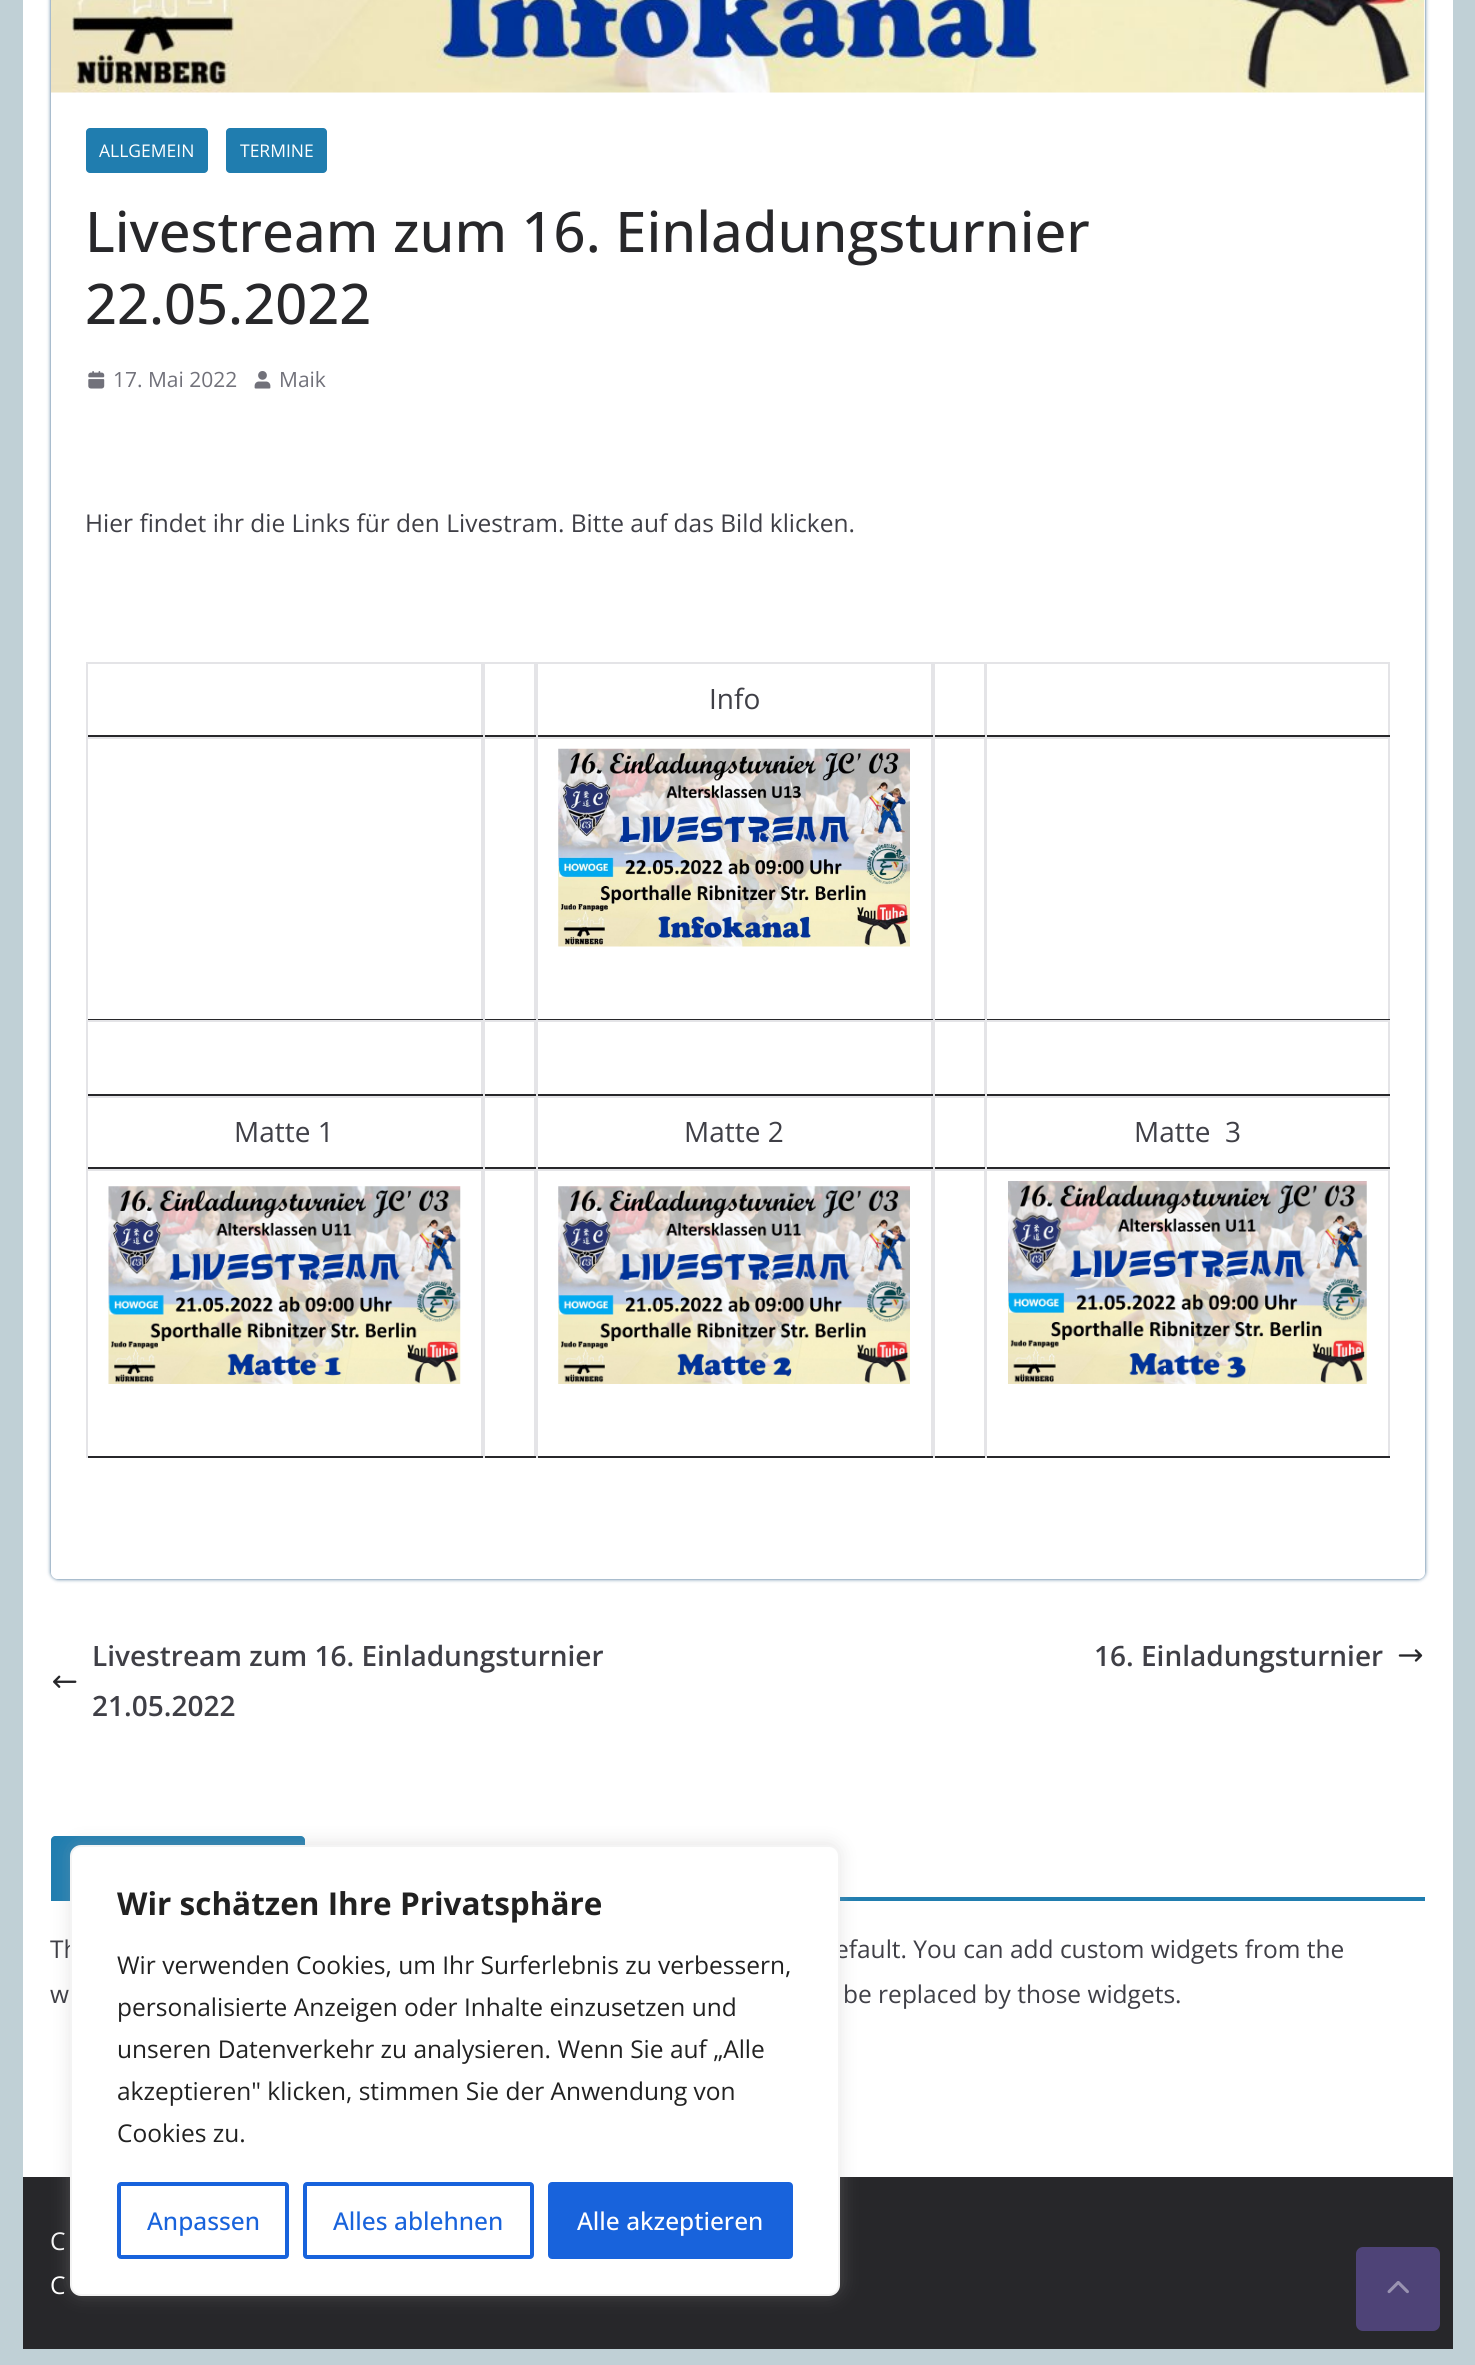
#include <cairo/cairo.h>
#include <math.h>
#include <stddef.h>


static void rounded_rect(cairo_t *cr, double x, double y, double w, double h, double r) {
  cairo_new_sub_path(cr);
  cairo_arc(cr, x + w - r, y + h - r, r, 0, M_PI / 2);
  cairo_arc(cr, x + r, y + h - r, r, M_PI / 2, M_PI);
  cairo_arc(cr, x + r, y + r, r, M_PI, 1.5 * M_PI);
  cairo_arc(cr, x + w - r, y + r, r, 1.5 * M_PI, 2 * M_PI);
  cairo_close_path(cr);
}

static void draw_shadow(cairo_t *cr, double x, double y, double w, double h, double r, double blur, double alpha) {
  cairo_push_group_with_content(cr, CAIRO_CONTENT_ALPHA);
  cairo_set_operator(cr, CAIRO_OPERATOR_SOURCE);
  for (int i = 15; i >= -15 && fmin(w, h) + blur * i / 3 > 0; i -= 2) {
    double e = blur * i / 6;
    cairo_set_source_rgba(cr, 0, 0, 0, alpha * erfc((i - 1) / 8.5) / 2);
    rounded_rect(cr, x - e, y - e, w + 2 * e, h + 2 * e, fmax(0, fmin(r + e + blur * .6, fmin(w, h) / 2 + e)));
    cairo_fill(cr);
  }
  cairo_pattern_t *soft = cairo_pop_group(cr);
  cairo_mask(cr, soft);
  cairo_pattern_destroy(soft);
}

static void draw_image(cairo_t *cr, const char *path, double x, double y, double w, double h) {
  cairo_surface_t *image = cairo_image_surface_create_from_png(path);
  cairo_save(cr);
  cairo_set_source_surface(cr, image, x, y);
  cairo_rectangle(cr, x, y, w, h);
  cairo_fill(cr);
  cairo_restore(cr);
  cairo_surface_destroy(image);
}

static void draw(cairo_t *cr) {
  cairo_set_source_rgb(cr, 192 / 255.0, 208 / 255.0, 214 / 255.0);
  cairo_paint(cr);
  cairo_set_source_rgb(cr, 1, 1, 1);
  cairo_rectangle(cr, 23, 0, 1430, 2177);
  cairo_fill(cr);
  cairo_save(cr);
  cairo_set_fill_rule(cr, CAIRO_FILL_RULE_EVEN_ODD);
  cairo_new_path(cr);
  cairo_move_to(cr, 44, 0);
  cairo_line_to(cr, 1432, 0);
  cairo_line_to(cr, 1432, 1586);
  cairo_line_to(cr, 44, 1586);
  cairo_close_path(cr);
  cairo_move_to(cr, 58, -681);
  cairo_line_to(cr, 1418, -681);
  cairo_curve_to(cr, 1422, -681, 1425, -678, 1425, -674);
  cairo_line_to(cr, 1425, 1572);
  cairo_curve_to(cr, 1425, 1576, 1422, 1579, 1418, 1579);
  cairo_line_to(cr, 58, 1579);
  cairo_curve_to(cr, 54, 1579, 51, 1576, 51, 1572);
  cairo_line_to(cr, 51, -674);
  cairo_curve_to(cr, 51, -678, 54, -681, 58, -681);
  cairo_close_path(cr);
  cairo_clip(cr);
  cairo_set_source_rgb(cr, 49 / 255.0, 97 / 255.0, 136 / 255.0);
  draw_shadow(cr, 51, -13, 1374, 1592, 7, 2, 1);
  cairo_restore(cr);
  draw_image(cr, "images/1.png", 51, 0, 1374, 93);
  cairo_set_source_rgb(cr, 32 / 255.0, 125 / 255.0, 175 / 255.0);
  rounded_rect(cr, 86, 128, 122, 45, 4);
  cairo_fill(cr);
  rounded_rect(cr, 226, 128, 101, 45, 4);
  cairo_fill(cr);
  draw_image(cr, "images/2.png", 88, 371, 17, 18);
  draw_image(cr, "images/3.png", 254, 371, 17, 18);
  cairo_set_source_rgb(cr, 228 / 255.0, 228 / 255.0, 231 / 255.0);
  cairo_rectangle(cr, 86, 662, 1304, 2);
  cairo_fill(cr);
  cairo_rectangle(cr, 481, 662, 2, 75);
  cairo_fill(cr);
  cairo_set_source_rgb(cr, 39 / 255.0, 39 / 255.0, 42 / 255.0);
  cairo_rectangle(cr, 86, 735, 397, 2);
  cairo_fill(cr);
  cairo_set_source_rgb(cr, 228 / 255.0, 228 / 255.0, 231 / 255.0);
  cairo_rectangle(cr, 86, 662, 2, 75);
  cairo_fill(cr);
  cairo_rectangle(cr, 534, 662, 2, 75);
  cairo_fill(cr);
  cairo_set_source_rgb(cr, 39 / 255.0, 39 / 255.0, 42 / 255.0);
  cairo_rectangle(cr, 483, 735, 53, 2);
  cairo_fill(cr);
  cairo_set_source_rgb(cr, 228 / 255.0, 228 / 255.0, 231 / 255.0);
  cairo_rectangle(cr, 483, 662, 2, 75);
  cairo_fill(cr);
  cairo_rectangle(cr, 931, 662, 2, 75);
  cairo_fill(cr);
  cairo_set_source_rgb(cr, 39 / 255.0, 39 / 255.0, 42 / 255.0);
  cairo_rectangle(cr, 536, 735, 397, 2);
  cairo_fill(cr);
  cairo_set_source_rgb(cr, 228 / 255.0, 228 / 255.0, 231 / 255.0);
  cairo_rectangle(cr, 536, 662, 2, 75);
  cairo_fill(cr);
  cairo_rectangle(cr, 984, 662, 1, 75);
  cairo_fill(cr);
  cairo_set_source_rgb(cr, 39 / 255.0, 39 / 255.0, 42 / 255.0);
  cairo_rectangle(cr, 933, 735, 52, 2);
  cairo_fill(cr);
  cairo_set_source_rgb(cr, 228 / 255.0, 228 / 255.0, 231 / 255.0);
  cairo_rectangle(cr, 933, 662, 2, 75);
  cairo_fill(cr);
  cairo_rectangle(cr, 1388, 662, 2, 75);
  cairo_fill(cr);
  cairo_set_source_rgb(cr, 39 / 255.0, 39 / 255.0, 42 / 255.0);
  cairo_rectangle(cr, 985, 735, 405, 2);
  cairo_fill(cr);
  cairo_set_source_rgb(cr, 228 / 255.0, 228 / 255.0, 231 / 255.0);
  cairo_rectangle(cr, 985, 662, 2, 75);
  cairo_fill(cr);
  cairo_rectangle(cr, 86, 737, 1304, 2);
  cairo_fill(cr);
  cairo_rectangle(cr, 481, 737, 2, 283);
  cairo_fill(cr);
  cairo_set_source_rgb(cr, 39 / 255.0, 39 / 255.0, 42 / 255.0);
  cairo_rectangle(cr, 86, 1019, 397, 1);
  cairo_fill(cr);
  cairo_set_source_rgb(cr, 228 / 255.0, 228 / 255.0, 231 / 255.0);
  cairo_rectangle(cr, 86, 737, 2, 283);
  cairo_fill(cr);
  cairo_rectangle(cr, 534, 737, 2, 283);
  cairo_fill(cr);
  cairo_set_source_rgb(cr, 39 / 255.0, 39 / 255.0, 42 / 255.0);
  cairo_rectangle(cr, 483, 1019, 53, 1);
  cairo_fill(cr);
  cairo_set_source_rgb(cr, 228 / 255.0, 228 / 255.0, 231 / 255.0);
  cairo_rectangle(cr, 483, 737, 2, 283);
  cairo_fill(cr);
  cairo_rectangle(cr, 931, 737, 2, 283);
  cairo_fill(cr);
  cairo_set_source_rgb(cr, 39 / 255.0, 39 / 255.0, 42 / 255.0);
  cairo_rectangle(cr, 536, 1019, 397, 1);
  cairo_fill(cr);
  cairo_set_source_rgb(cr, 228 / 255.0, 228 / 255.0, 231 / 255.0);
  cairo_rectangle(cr, 536, 737, 2, 283);
  cairo_fill(cr);
  draw_image(cr, "images/4.png", 558, 748, 352, 199);
  cairo_rectangle(cr, 984, 737, 1, 283);
  cairo_fill(cr);
  cairo_set_source_rgb(cr, 39 / 255.0, 39 / 255.0, 42 / 255.0);
  cairo_rectangle(cr, 933, 1019, 52, 1);
  cairo_fill(cr);
  cairo_set_source_rgb(cr, 228 / 255.0, 228 / 255.0, 231 / 255.0);
  cairo_rectangle(cr, 933, 737, 2, 283);
  cairo_fill(cr);
  cairo_rectangle(cr, 1388, 737, 2, 283);
  cairo_fill(cr);
  cairo_set_source_rgb(cr, 39 / 255.0, 39 / 255.0, 42 / 255.0);
  cairo_rectangle(cr, 985, 1019, 405, 1);
  cairo_fill(cr);
  cairo_set_source_rgb(cr, 228 / 255.0, 228 / 255.0, 231 / 255.0);
  cairo_rectangle(cr, 985, 737, 2, 283);
  cairo_fill(cr);
  cairo_rectangle(cr, 86, 1020, 1304, 2);
  cairo_fill(cr);
  cairo_rectangle(cr, 481, 1020, 2, 76);
  cairo_fill(cr);
  cairo_set_source_rgb(cr, 39 / 255.0, 39 / 255.0, 42 / 255.0);
  cairo_rectangle(cr, 86, 1094, 397, 2);
  cairo_fill(cr);
  cairo_set_source_rgb(cr, 228 / 255.0, 228 / 255.0, 231 / 255.0);
  cairo_rectangle(cr, 86, 1020, 2, 76);
  cairo_fill(cr);
  cairo_rectangle(cr, 534, 1020, 2, 76);
  cairo_fill(cr);
  cairo_set_source_rgb(cr, 39 / 255.0, 39 / 255.0, 42 / 255.0);
  cairo_rectangle(cr, 483, 1094, 53, 2);
  cairo_fill(cr);
  cairo_set_source_rgb(cr, 228 / 255.0, 228 / 255.0, 231 / 255.0);
  cairo_rectangle(cr, 483, 1020, 2, 76);
  cairo_fill(cr);
  cairo_rectangle(cr, 931, 1020, 2, 76);
  cairo_fill(cr);
  cairo_set_source_rgb(cr, 39 / 255.0, 39 / 255.0, 42 / 255.0);
  cairo_rectangle(cr, 536, 1094, 397, 2);
  cairo_fill(cr);
  cairo_set_source_rgb(cr, 228 / 255.0, 228 / 255.0, 231 / 255.0);
  cairo_rectangle(cr, 536, 1020, 2, 76);
  cairo_fill(cr);
  cairo_rectangle(cr, 984, 1020, 1, 76);
  cairo_fill(cr);
  cairo_set_source_rgb(cr, 39 / 255.0, 39 / 255.0, 42 / 255.0);
  cairo_rectangle(cr, 933, 1094, 52, 2);
  cairo_fill(cr);
  cairo_set_source_rgb(cr, 228 / 255.0, 228 / 255.0, 231 / 255.0);
  cairo_rectangle(cr, 933, 1020, 2, 76);
  cairo_fill(cr);
  cairo_rectangle(cr, 1388, 1020, 2, 76);
  cairo_fill(cr);
  cairo_set_source_rgb(cr, 39 / 255.0, 39 / 255.0, 42 / 255.0);
  cairo_rectangle(cr, 985, 1094, 405, 2);
  cairo_fill(cr);
  cairo_set_source_rgb(cr, 228 / 255.0, 228 / 255.0, 231 / 255.0);
  cairo_rectangle(cr, 985, 1020, 2, 76);
  cairo_fill(cr);
  cairo_rectangle(cr, 86, 1096, 1304, 2);
  cairo_fill(cr);
  cairo_rectangle(cr, 481, 1096, 2, 73);
  cairo_fill(cr);
  cairo_set_source_rgb(cr, 39 / 255.0, 39 / 255.0, 42 / 255.0);
  cairo_rectangle(cr, 86, 1167, 397, 2);
  cairo_fill(cr);
  cairo_set_source_rgb(cr, 228 / 255.0, 228 / 255.0, 231 / 255.0);
  cairo_rectangle(cr, 86, 1096, 2, 73);
  cairo_fill(cr);
  cairo_rectangle(cr, 534, 1096, 2, 73);
  cairo_fill(cr);
  cairo_set_source_rgb(cr, 39 / 255.0, 39 / 255.0, 42 / 255.0);
  cairo_rectangle(cr, 483, 1167, 53, 2);
  cairo_fill(cr);
  cairo_set_source_rgb(cr, 228 / 255.0, 228 / 255.0, 231 / 255.0);
  cairo_rectangle(cr, 483, 1096, 2, 73);
  cairo_fill(cr);
  cairo_rectangle(cr, 931, 1096, 2, 73);
  cairo_fill(cr);
  cairo_set_source_rgb(cr, 39 / 255.0, 39 / 255.0, 42 / 255.0);
  cairo_rectangle(cr, 536, 1167, 397, 2);
  cairo_fill(cr);
  cairo_set_source_rgb(cr, 228 / 255.0, 228 / 255.0, 231 / 255.0);
  cairo_rectangle(cr, 536, 1096, 2, 73);
  cairo_fill(cr);
  cairo_rectangle(cr, 984, 1096, 1, 73);
  cairo_fill(cr);
  cairo_set_source_rgb(cr, 39 / 255.0, 39 / 255.0, 42 / 255.0);
  cairo_rectangle(cr, 933, 1167, 52, 2);
  cairo_fill(cr);
  cairo_set_source_rgb(cr, 228 / 255.0, 228 / 255.0, 231 / 255.0);
  cairo_rectangle(cr, 933, 1096, 2, 73);
  cairo_fill(cr);
  cairo_rectangle(cr, 1388, 1096, 2, 73);
  cairo_fill(cr);
  cairo_set_source_rgb(cr, 39 / 255.0, 39 / 255.0, 42 / 255.0);
  cairo_rectangle(cr, 985, 1167, 405, 2);
  cairo_fill(cr);
  cairo_set_source_rgb(cr, 228 / 255.0, 228 / 255.0, 231 / 255.0);
  cairo_rectangle(cr, 985, 1096, 2, 73);
  cairo_fill(cr);
  cairo_rectangle(cr, 86, 1169, 1304, 2);
  cairo_fill(cr);
  cairo_rectangle(cr, 481, 1169, 2, 289);
  cairo_fill(cr);
  cairo_set_source_rgb(cr, 39 / 255.0, 39 / 255.0, 42 / 255.0);
  cairo_rectangle(cr, 86, 1456, 397, 2);
  cairo_fill(cr);
  cairo_set_source_rgb(cr, 228 / 255.0, 228 / 255.0, 231 / 255.0);
  cairo_rectangle(cr, 86, 1169, 2, 289);
  cairo_fill(cr);
  draw_image(cr, "images/5.png", 108, 1186, 353, 198);
  cairo_rectangle(cr, 534, 1169, 2, 289);
  cairo_fill(cr);
  cairo_set_source_rgb(cr, 39 / 255.0, 39 / 255.0, 42 / 255.0);
  cairo_rectangle(cr, 483, 1456, 53, 2);
  cairo_fill(cr);
  cairo_set_source_rgb(cr, 228 / 255.0, 228 / 255.0, 231 / 255.0);
  cairo_rectangle(cr, 483, 1169, 2, 289);
  cairo_fill(cr);
  cairo_rectangle(cr, 931, 1169, 2, 289);
  cairo_fill(cr);
  cairo_set_source_rgb(cr, 39 / 255.0, 39 / 255.0, 42 / 255.0);
  cairo_rectangle(cr, 536, 1456, 397, 2);
  cairo_fill(cr);
  cairo_set_source_rgb(cr, 228 / 255.0, 228 / 255.0, 231 / 255.0);
  cairo_rectangle(cr, 536, 1169, 2, 289);
  cairo_fill(cr);
  draw_image(cr, "images/6.png", 558, 1186, 352, 198);
  cairo_rectangle(cr, 984, 1169, 1, 289);
  cairo_fill(cr);
  cairo_set_source_rgb(cr, 39 / 255.0, 39 / 255.0, 42 / 255.0);
  cairo_rectangle(cr, 933, 1456, 52, 2);
  cairo_fill(cr);
  cairo_set_source_rgb(cr, 228 / 255.0, 228 / 255.0, 231 / 255.0);
  cairo_rectangle(cr, 933, 1169, 2, 289);
  cairo_fill(cr);
  cairo_rectangle(cr, 1388, 1169, 2, 289);
  cairo_fill(cr);
  cairo_set_source_rgb(cr, 39 / 255.0, 39 / 255.0, 42 / 255.0);
  cairo_rectangle(cr, 985, 1456, 405, 2);
  cairo_fill(cr);
  cairo_set_source_rgb(cr, 228 / 255.0, 228 / 255.0, 231 / 255.0);
  cairo_rectangle(cr, 985, 1169, 2, 289);
  cairo_fill(cr);
  draw_image(cr, "images/7.png", 1008, 1181, 359, 203);
  draw_image(cr, "images/8.png", 53, 1675, 24, 13);
  draw_image(cr, "images/9.png", 1398, 1649, 25, 13);
  cairo_set_source_rgb(cr, 32 / 255.0, 125 / 255.0, 175 / 255.0);
  cairo_rectangle(cr, 51, 1897, 1374, 4);
  cairo_fill(cr);
  cairo_new_path(cr);
  cairo_move_to(cr, 55, 1836);
  cairo_line_to(cr, 301, 1836);
  cairo_curve_to(cr, 303, 1836, 305, 1838, 305, 1840);
  cairo_line_to(cr, 305, 1897);
  cairo_line_to(cr, 51, 1897);
  cairo_line_to(cr, 51, 1840);
  cairo_curve_to(cr, 51, 1838, 53, 1836, 55, 1836);
  cairo_close_path(cr);
  cairo_fill(cr);
  cairo_set_source_rgb(cr, 39 / 255.0, 39 / 255.0, 42 / 255.0);
  cairo_rectangle(cr, 23, 2177, 1430, 172);
  cairo_fill(cr);
  cairo_set_source_rgb(cr, 78 / 255.0, 67 / 255.0, 119 / 255.0);
  rounded_rect(cr, 1356, 2247, 84, 84, 7);
  cairo_fill(cr);
  draw_image(cr, "images/10.png", 1387, 2281, 22, 13);
  cairo_set_source_rgb(cr, 172 / 255.0, 171 / 255.0, 171 / 255.0);
  draw_shadow(cr, 70, 1843, 770, 451, 11, 9, 0.3);
  cairo_select_font_face(cr, "Open Sans", CAIRO_FONT_SLANT_NORMAL, CAIRO_FONT_WEIGHT_NORMAL);
  cairo_set_font_size(cr, 17.5);
  cairo_set_source_rgb(cr, 1, 1, 1);
  cairo_move_to(cr, 99, 157);
  cairo_show_text(cr, "ALLGEMEIN");
  cairo_move_to(cr, 240, 157);
  cairo_show_text(cr, "TERMINE");
  cairo_select_font_face(cr, "Open Sans Medium", CAIRO_FONT_SLANT_NORMAL, CAIRO_FONT_WEIGHT_NORMAL);
  cairo_set_font_size(cr, 56);
  cairo_set_source_rgb(cr, 39 / 255.0, 39 / 255.0, 42 / 255.0);
  cairo_move_to(cr, 85, 252);
  cairo_show_text(cr, "Livestream zum 16. Einladungsturnier");
  cairo_move_to(cr, 85, 324);
  cairo_show_text(cr, "22.05.2022");
  cairo_select_font_face(cr, "Open Sans", CAIRO_FONT_SLANT_NORMAL, CAIRO_FONT_WEIGHT_NORMAL);
  cairo_set_font_size(cr, 21);
  cairo_set_source_rgb(cr, 113 / 255.0, 113 / 255.0, 122 / 255.0);
  cairo_move_to(cr, 113, 387);
  cairo_show_text(cr, "17. Mai 2022");
  cairo_move_to(cr, 279, 387);
  cairo_show_text(cr, "Maik");
  cairo_set_font_size(cr, 24.5);
  cairo_set_source_rgb(cr, 63 / 255.0, 63 / 255.0, 70 / 255.0);
  cairo_move_to(cr, 85, 532);
  cairo_show_text(cr, "Hier findet ihr die Links für den Livestram. Bitte auf das Bild klicken.");
  cairo_set_font_size(cr, 28);
  cairo_move_to(cr, 709, 709);
  cairo_show_text(cr, "Info");
  cairo_move_to(cr, 234, 1142);
  cairo_show_text(cr, "Matte 1");
  cairo_move_to(cr, 684, 1142);
  cairo_show_text(cr, "Matte 2");
  cairo_move_to(cr, 1134, 1142);
  cairo_show_text(cr, "Matte  3");
  cairo_select_font_face(cr, "Open Sans SemiBold", CAIRO_FONT_SLANT_NORMAL, CAIRO_FONT_WEIGHT_NORMAL);
  cairo_move_to(cr, 92, 1666);
  cairo_show_text(cr, "Livestream zum 16. Einladungsturnier");
  cairo_move_to(cr, 92, 1716);
  cairo_show_text(cr, "21.05.2022");
  cairo_move_to(cr, 1094, 1666);
  cairo_show_text(cr, "16. Einladungsturnier");
  cairo_select_font_face(cr, "Open Sans", CAIRO_FONT_SLANT_NORMAL, CAIRO_FONT_WEIGHT_NORMAL);
  cairo_set_font_size(cr, 24.5);
  cairo_move_to(cr, 50, 1958);
  cairo_show_text(cr, "Th");
  cairo_move_to(cr, 835, 1958);
  cairo_show_text(cr, "efault. You can add custom widgets from the");
  cairo_move_to(cr, 50, 2003);
  cairo_show_text(cr, "w");
  cairo_move_to(cr, 843, 2003);
  cairo_show_text(cr, "be replaced by those widgets.");
  cairo_set_source_rgb(cr, 244 / 255.0, 244 / 255.0, 245 / 255.0);
  cairo_move_to(cr, 50, 2250);
  cairo_show_text(cr, "C");
  cairo_set_source_rgb(cr, 1, 1, 1);
  cairo_move_to(cr, 50, 2294);
  cairo_show_text(cr, "C");
  rounded_rect(cr, 71, 1846, 768, 449, 10);
  cairo_fill_preserve(cr);
  cairo_set_source_rgb(cr, 244 / 255.0, 244 / 255.0, 244 / 255.0);
  cairo_stroke(cr);
  cairo_select_font_face(cr, "Open Sans", CAIRO_FONT_SLANT_NORMAL, CAIRO_FONT_WEIGHT_BOLD);
  cairo_set_font_size(cr, 31.5);
  cairo_set_source_rgb(cr, 33 / 255.0, 33 / 255.0, 33 / 255.0);
  cairo_move_to(cr, 117, 1915);
  cairo_show_text(cr, "Wir schätzen Ihre Privatsphäre");
  cairo_select_font_face(cr, "Open Sans", CAIRO_FONT_SLANT_NORMAL, CAIRO_FONT_WEIGHT_NORMAL);
  cairo_set_font_size(cr, 24.5);
  cairo_move_to(cr, 117, 1974);
  cairo_show_text(cr, "Wir verwenden Cookies, um Ihr Surferlebnis zu verbessern,");
  cairo_move_to(cr, 117, 2016);
  cairo_show_text(cr, "personalisierte Anzeigen oder Inhalte einzusetzen und");
  cairo_move_to(cr, 117, 2058);
  cairo_show_text(cr, "unseren Datenverkehr zu analysieren. Wenn Sie auf „Alle");
  cairo_move_to(cr, 117, 2100);
  cairo_show_text(cr, "akzeptieren\" klicken, stimmen Sie der Anwendung von");
  cairo_move_to(cr, 117, 2142);
  cairo_show_text(cr, "Cookies zu.");
  rounded_rect(cr, 119, 2184, 168, 73, 2);
  cairo_set_source_rgb(cr, 24 / 255.0, 99 / 255.0, 220 / 255.0);
  cairo_set_line_width(cr, 4);
  cairo_stroke(cr);
  cairo_select_font_face(cr, "Open Sans Medium", CAIRO_FONT_SLANT_NORMAL, CAIRO_FONT_WEIGHT_NORMAL);
  cairo_move_to(cr, 147, 2230);
  cairo_show_text(cr, "Anpassen");
  rounded_rect(cr, 305, 2184, 227, 73, 2);
  cairo_stroke(cr);
  cairo_move_to(cr, 333, 2230);
  cairo_show_text(cr, "Alles ablehnen");
  rounded_rect(cr, 550, 2184, 241, 73, 2);
  cairo_fill_preserve(cr);
  cairo_stroke(cr);
  cairo_set_source_rgb(cr, 1, 1, 1);
  cairo_move_to(cr, 577, 2230);
  cairo_show_text(cr, "Alle akzeptieren");
}

int main(void) {
  cairo_surface_t *surface = cairo_image_surface_create(CAIRO_FORMAT_RGB24, 1475, 2365);
  cairo_t *cr = cairo_create(surface);
  cairo_font_options_t *options = cairo_font_options_create();
  cairo_font_options_set_hint_metrics(options, CAIRO_HINT_METRICS_OFF);
  cairo_font_options_set_hint_style(options, CAIRO_HINT_STYLE_NONE);
  cairo_set_font_options(cr, options);
  cairo_set_miter_limit(cr, 4);
  draw(cr);
  cairo_surface_write_to_png(surface, "out.png");
  cairo_font_options_destroy(options);
  cairo_destroy(cr);
  cairo_surface_destroy(surface);
  return 0;
}
